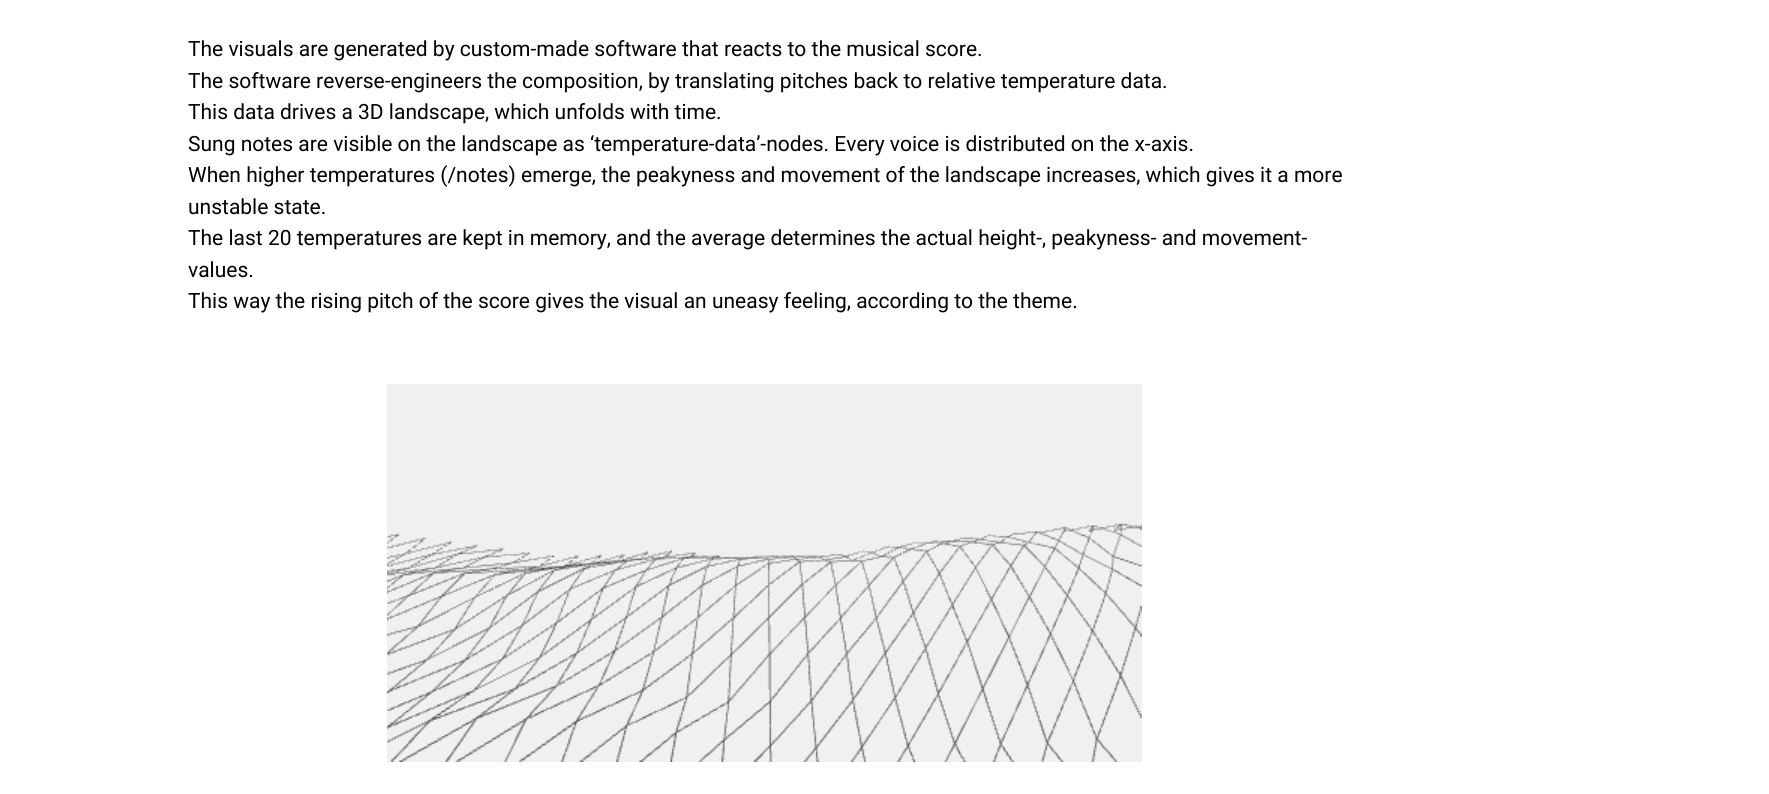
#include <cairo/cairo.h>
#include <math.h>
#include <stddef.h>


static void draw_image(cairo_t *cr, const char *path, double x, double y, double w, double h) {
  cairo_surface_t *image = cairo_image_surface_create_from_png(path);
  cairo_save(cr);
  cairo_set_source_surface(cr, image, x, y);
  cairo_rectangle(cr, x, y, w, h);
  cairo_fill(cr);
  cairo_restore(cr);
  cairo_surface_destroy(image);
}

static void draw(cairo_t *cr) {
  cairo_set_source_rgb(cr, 1, 1, 1);
  cairo_paint(cr);
  draw_image(cr, "images/1.png", 387, 384, 755, 378);
  cairo_select_font_face(cr, "Roboto", CAIRO_FONT_SLANT_NORMAL, CAIRO_FONT_WEIGHT_NORMAL);
  cairo_set_font_size(cr, 21);
  cairo_set_source_rgb(cr, 0, 0, 0);
  cairo_move_to(cr, 188, 56);
  cairo_show_text(cr, "The visuals are generated by custom-made software that reacts to the musical score.");
  cairo_move_to(cr, 188, 88);
  cairo_show_text(cr, "The software reverse-engineers the composition, by translating pitches back to relative temperature data.");
  cairo_move_to(cr, 188, 119);
  cairo_show_text(cr, "This data drives a 3D landscape, which unfolds with time.");
  cairo_move_to(cr, 188, 151);
  cairo_show_text(cr, "Sung notes are visible on the landscape as ‘temperature-data’-nodes. Every voice is distributed on the x-axis.");
  cairo_move_to(cr, 188, 182);
  cairo_show_text(cr, "When higher temperatures (/notes) emerge, the peakyness and movement of the landscape increases, which gives it a more");
  cairo_move_to(cr, 188, 214);
  cairo_show_text(cr, "unstable state.");
  cairo_move_to(cr, 188, 245);
  cairo_show_text(cr, "The last 20 temperatures are kept in memory, and the average determines the actual height-, peakyness- and movement-");
  cairo_move_to(cr, 188, 277);
  cairo_show_text(cr, "values.");
  cairo_move_to(cr, 188, 308);
  cairo_show_text(cr, "This way the rising pitch of the score gives the visual an uneasy feeling, according to the theme.");
}

int main(void) {
  cairo_surface_t *surface = cairo_image_surface_create(CAIRO_FORMAT_RGB24, 1769, 794);
  cairo_t *cr = cairo_create(surface);
  cairo_font_options_t *options = cairo_font_options_create();
  cairo_font_options_set_hint_metrics(options, CAIRO_HINT_METRICS_OFF);
  cairo_font_options_set_hint_style(options, CAIRO_HINT_STYLE_NONE);
  cairo_set_font_options(cr, options);
  cairo_set_miter_limit(cr, 4);
  draw(cr);
  cairo_surface_write_to_png(surface, "out.png");
  cairo_font_options_destroy(options);
  cairo_destroy(cr);
  cairo_surface_destroy(surface);
  return 0;
}
